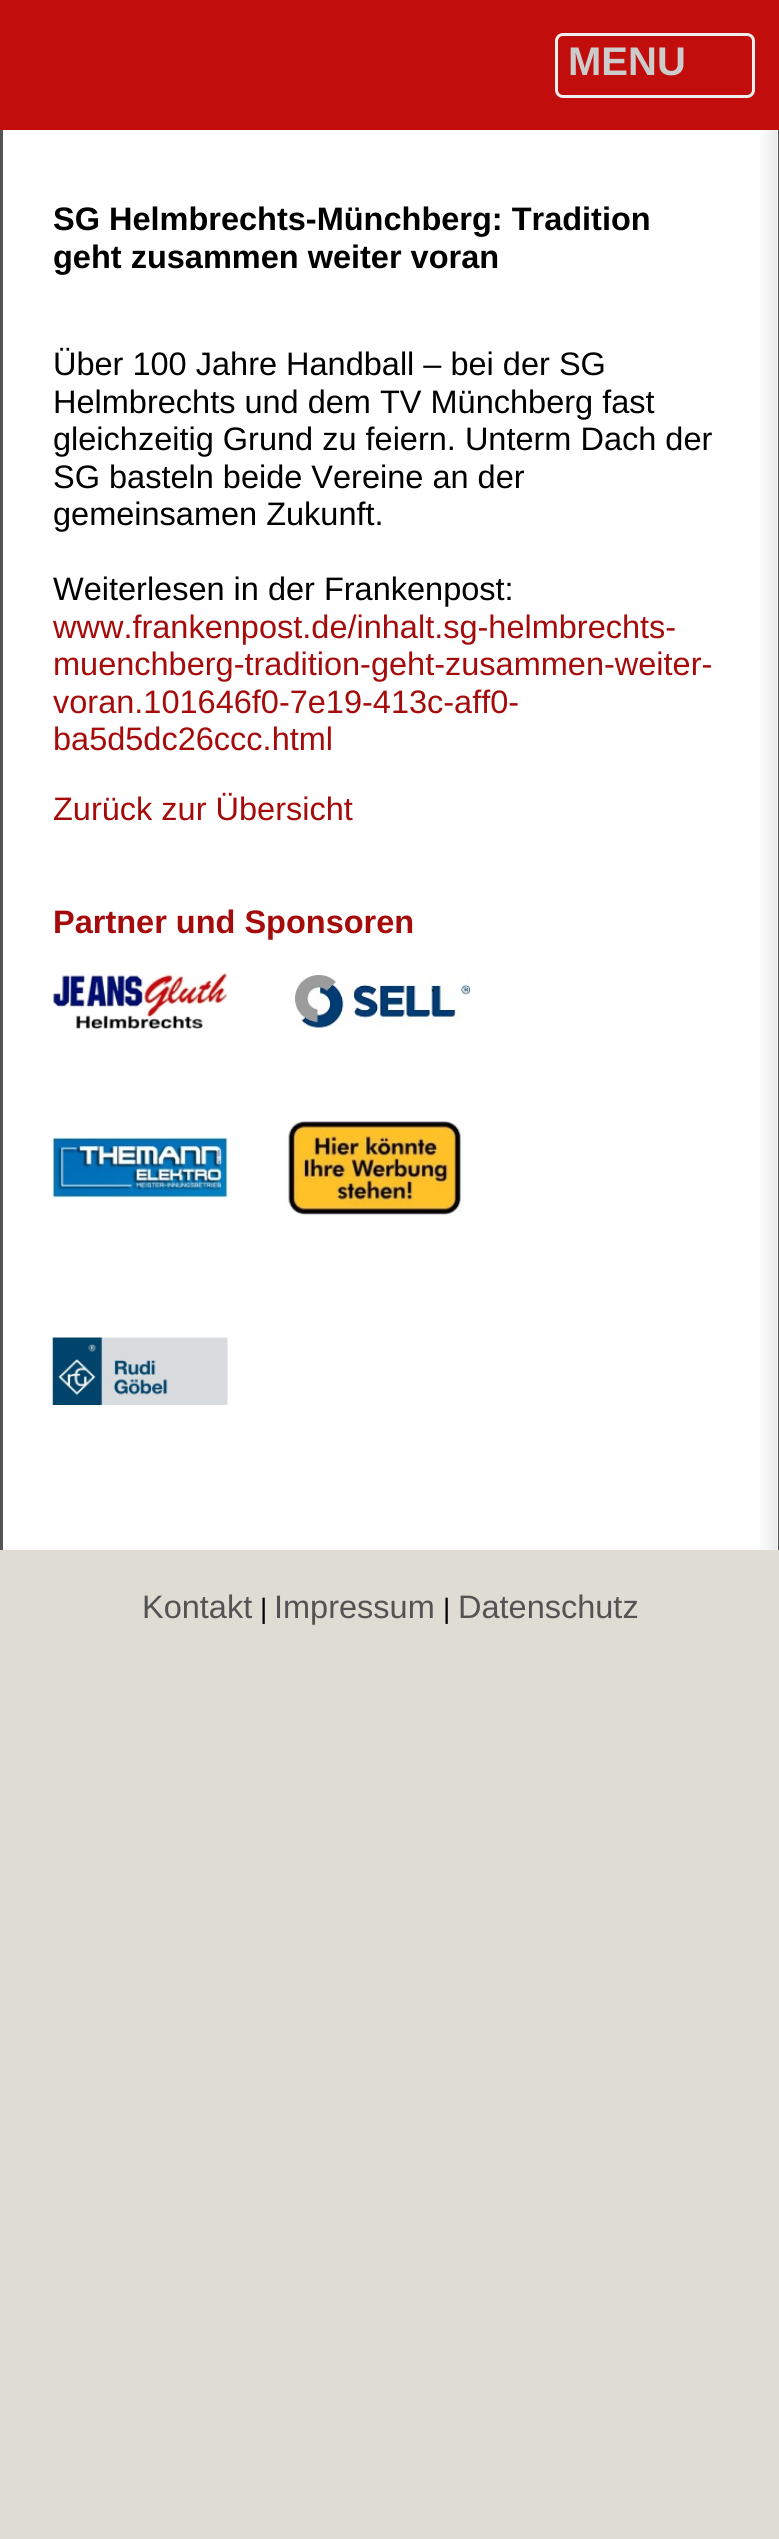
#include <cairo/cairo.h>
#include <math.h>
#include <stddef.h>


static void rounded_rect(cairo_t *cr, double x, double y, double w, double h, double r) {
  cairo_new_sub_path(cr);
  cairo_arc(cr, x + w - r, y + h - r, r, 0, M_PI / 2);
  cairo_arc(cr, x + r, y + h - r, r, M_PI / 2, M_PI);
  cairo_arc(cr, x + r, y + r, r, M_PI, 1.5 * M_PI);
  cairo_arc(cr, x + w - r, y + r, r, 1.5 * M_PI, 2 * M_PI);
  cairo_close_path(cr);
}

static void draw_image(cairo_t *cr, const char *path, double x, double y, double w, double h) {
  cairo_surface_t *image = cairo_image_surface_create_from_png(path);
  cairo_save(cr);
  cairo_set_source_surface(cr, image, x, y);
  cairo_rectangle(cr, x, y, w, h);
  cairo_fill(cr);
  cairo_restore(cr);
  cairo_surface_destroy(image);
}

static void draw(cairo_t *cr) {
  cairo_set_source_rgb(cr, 222 / 255.0, 220 / 255.0, 211 / 255.0);
  cairo_paint(cr);
  cairo_set_source_rgb(cr, 194 / 255.0, 13 / 255.0, 13 / 255.0);
  cairo_rectangle(cr, 0, 0, 779, 130);
  cairo_fill(cr);
  rounded_rect(cr, 556.5, 34.5, 197, 62, 6.5);
  cairo_set_source_rgb(cr, 238 / 255.0, 238 / 255.0, 238 / 255.0);
  cairo_set_line_width(cr, 3);
  cairo_stroke(cr);
  cairo_set_source_rgb(cr, 1, 1, 1);
  cairo_rectangle(cr, 3, 130, 775, 1420);
  cairo_fill(cr);
  draw_image(cr, "images/1.png", 760, 130, 18, 1420);
  cairo_set_source_rgb(cr, 84 / 255.0, 84 / 255.0, 84 / 255.0);
  cairo_rectangle(cr, 778, 130, 1, 1420);
  cairo_fill(cr);
  cairo_rectangle(cr, 0, 130, 3, 1420);
  cairo_fill(cr);
  draw_image(cr, "images/2.png", 52, 972, 176, 57);
  draw_image(cr, "images/3.png", 295, 975, 175, 53);
  draw_image(cr, "images/4.png", 52, 1137, 176, 61);
  draw_image(cr, "images/5.png", 287, 1120, 176, 95);
  draw_image(cr, "images/6.png", 52, 1337, 176, 68);
  cairo_select_font_face(cr, "Liberation Sans", CAIRO_FONT_SLANT_NORMAL, CAIRO_FONT_WEIGHT_BOLD);
  cairo_set_font_size(cr, 40);
  cairo_set_source_rgb(cr, 204 / 255.0, 204 / 255.0, 204 / 255.0);
  cairo_move_to(cr, 568, 75);
  cairo_show_text(cr, "MENU");
  cairo_set_font_size(cr, 32.5);
  cairo_set_source_rgb(cr, 0, 0, 0);
  cairo_move_to(cr, 53, 230);
  cairo_show_text(cr, "SG Helmbrechts-Münchberg: Tradition");
  cairo_move_to(cr, 53, 268);
  cairo_show_text(cr, "geht zusammen weiter voran");
  cairo_select_font_face(cr, "Liberation Sans", CAIRO_FONT_SLANT_NORMAL, CAIRO_FONT_WEIGHT_NORMAL);
  cairo_move_to(cr, 53, 375);
  cairo_show_text(cr, "Über 100 Jahre Handball – bei der SG");
  cairo_move_to(cr, 53, 413);
  cairo_show_text(cr, "Helmbrechts und dem TV Münchberg fast");
  cairo_move_to(cr, 53, 450);
  cairo_show_text(cr, "gleichzeitig Grund zu feiern. Unterm Dach der");
  cairo_move_to(cr, 53, 488);
  cairo_show_text(cr, "SG basteln beide Vereine an der");
  cairo_move_to(cr, 53, 525);
  cairo_show_text(cr, "gemeinsamen Zukunft.");
  cairo_move_to(cr, 53, 600);
  cairo_show_text(cr, "Weiterlesen in der Frankenpost:");
  cairo_set_source_rgb(cr, 165 / 255.0, 11 / 255.0, 11 / 255.0);
  cairo_move_to(cr, 53, 638);
  cairo_show_text(cr, "www.frankenpost.de/inhalt.sg-helmbrechts-");
  cairo_move_to(cr, 53, 675);
  cairo_show_text(cr, "muenchberg-tradition-geht-zusammen-weiter-");
  cairo_move_to(cr, 53, 713);
  cairo_show_text(cr, "voran.101646f0-7e19-413c-aff0-");
  cairo_move_to(cr, 53, 750);
  cairo_show_text(cr, "ba5d5dc26ccc.html");
  cairo_move_to(cr, 53, 820);
  cairo_show_text(cr, "Zurück zur Übersicht");
  cairo_select_font_face(cr, "Liberation Sans", CAIRO_FONT_SLANT_NORMAL, CAIRO_FONT_WEIGHT_BOLD);
  cairo_move_to(cr, 53, 933);
  cairo_show_text(cr, "Partner und Sponsoren");
  cairo_select_font_face(cr, "Liberation Sans", CAIRO_FONT_SLANT_NORMAL, CAIRO_FONT_WEIGHT_NORMAL);
  cairo_set_source_rgb(cr, 83 / 255.0, 83 / 255.0, 83 / 255.0);
  cairo_move_to(cr, 142, 1618);
  cairo_show_text(cr, "Kontakt");
  cairo_set_font_size(cr, 28);
  cairo_set_source_rgb(cr, 0, 0, 0);
  cairo_move_to(cr, 260, 1618);
  cairo_show_text(cr, "|");
  cairo_set_font_size(cr, 32.5);
  cairo_set_source_rgb(cr, 83 / 255.0, 83 / 255.0, 83 / 255.0);
  cairo_move_to(cr, 274, 1618);
  cairo_show_text(cr, "Impressum");
  cairo_set_font_size(cr, 28);
  cairo_set_source_rgb(cr, 0, 0, 0);
  cairo_move_to(cr, 443, 1618);
  cairo_show_text(cr, "|");
  cairo_set_font_size(cr, 32.5);
  cairo_set_source_rgb(cr, 83 / 255.0, 83 / 255.0, 83 / 255.0);
  cairo_move_to(cr, 458, 1618);
  cairo_show_text(cr, "Datenschutz");
}

int main(void) {
  cairo_surface_t *surface = cairo_image_surface_create(CAIRO_FORMAT_RGB24, 779, 2539);
  cairo_t *cr = cairo_create(surface);
  cairo_font_options_t *options = cairo_font_options_create();
  cairo_font_options_set_hint_metrics(options, CAIRO_HINT_METRICS_OFF);
  cairo_font_options_set_hint_style(options, CAIRO_HINT_STYLE_NONE);
  cairo_set_font_options(cr, options);
  cairo_set_miter_limit(cr, 4);
  draw(cr);
  cairo_surface_write_to_png(surface, "out.png");
  cairo_font_options_destroy(options);
  cairo_destroy(cr);
  cairo_surface_destroy(surface);
  return 0;
}
